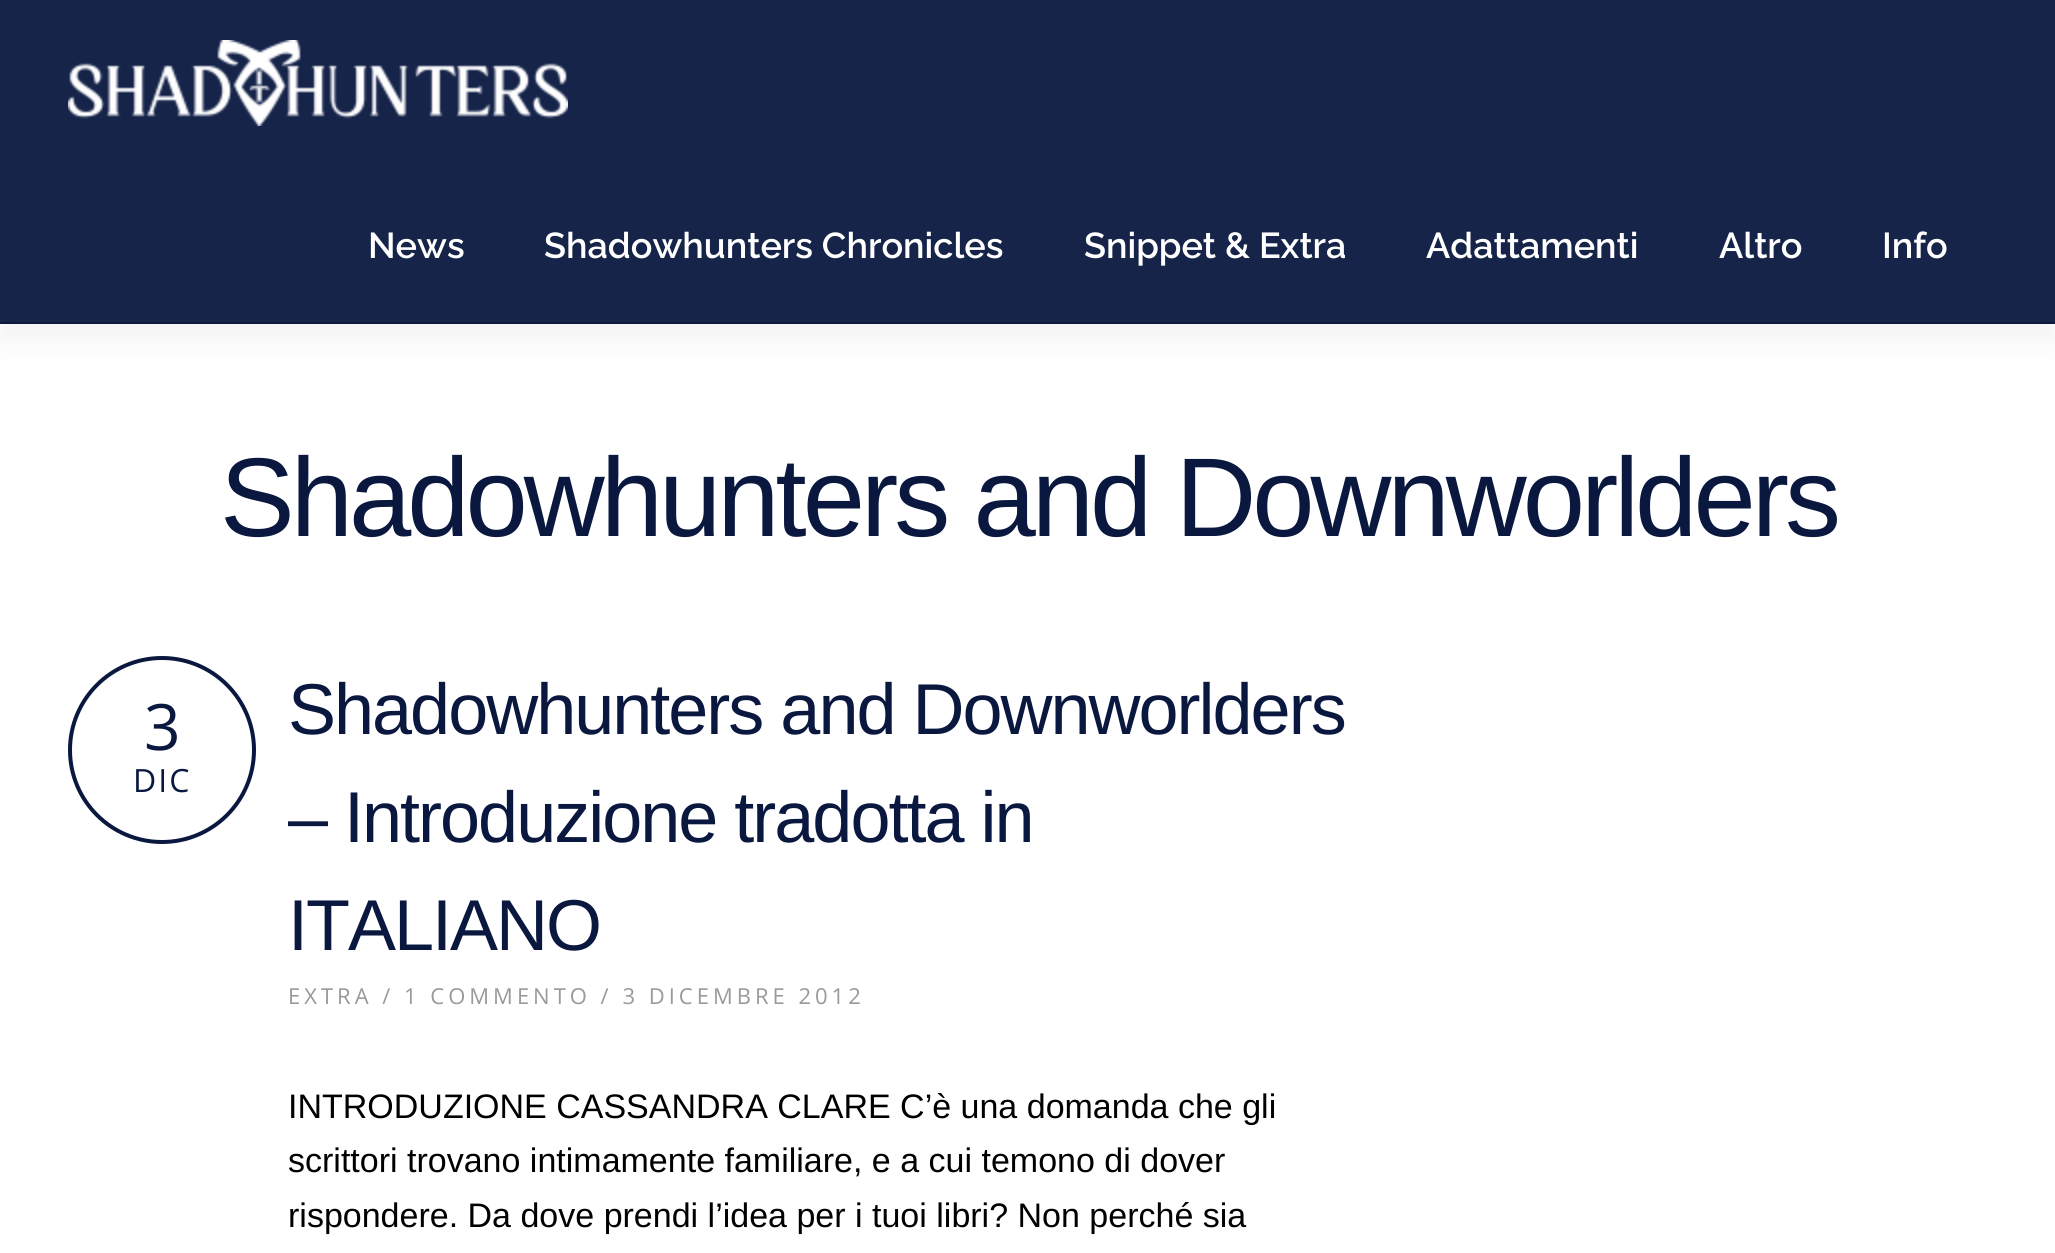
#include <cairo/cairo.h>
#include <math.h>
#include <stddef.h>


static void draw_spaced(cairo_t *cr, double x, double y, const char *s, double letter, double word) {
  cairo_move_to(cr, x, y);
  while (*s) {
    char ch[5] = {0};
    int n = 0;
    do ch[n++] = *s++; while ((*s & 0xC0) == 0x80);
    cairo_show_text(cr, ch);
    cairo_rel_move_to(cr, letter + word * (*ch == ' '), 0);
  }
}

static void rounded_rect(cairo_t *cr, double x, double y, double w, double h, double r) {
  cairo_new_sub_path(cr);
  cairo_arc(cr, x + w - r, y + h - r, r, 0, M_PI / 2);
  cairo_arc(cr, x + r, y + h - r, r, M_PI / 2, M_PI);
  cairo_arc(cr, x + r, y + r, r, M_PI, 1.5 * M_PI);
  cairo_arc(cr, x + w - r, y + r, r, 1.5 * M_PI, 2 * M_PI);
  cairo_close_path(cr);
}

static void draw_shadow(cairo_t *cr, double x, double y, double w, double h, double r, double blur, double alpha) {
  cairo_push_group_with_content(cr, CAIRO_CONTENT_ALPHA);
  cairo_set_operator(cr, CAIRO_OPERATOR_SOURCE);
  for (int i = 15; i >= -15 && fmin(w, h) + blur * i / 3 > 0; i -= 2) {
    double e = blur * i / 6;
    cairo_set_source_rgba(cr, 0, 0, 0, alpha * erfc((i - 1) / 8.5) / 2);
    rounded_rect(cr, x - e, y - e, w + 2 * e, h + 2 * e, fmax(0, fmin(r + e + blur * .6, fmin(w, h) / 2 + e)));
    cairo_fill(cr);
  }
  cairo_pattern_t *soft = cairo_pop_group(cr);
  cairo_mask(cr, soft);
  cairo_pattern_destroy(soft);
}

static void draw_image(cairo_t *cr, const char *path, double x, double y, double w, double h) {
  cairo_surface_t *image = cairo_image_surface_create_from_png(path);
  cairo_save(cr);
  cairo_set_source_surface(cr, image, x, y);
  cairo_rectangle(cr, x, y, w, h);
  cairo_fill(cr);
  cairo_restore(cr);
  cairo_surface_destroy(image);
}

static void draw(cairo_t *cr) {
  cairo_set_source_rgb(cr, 1, 1, 1);
  cairo_paint(cr);
  cairo_set_source_rgb(cr, 0, 0, 0);
  draw_shadow(cr, 0, 16, 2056, 324, 0, 15, 0.05);
  cairo_set_source_rgb(cr, 22 / 255.0, 36 / 255.0, 74 / 255.0);
  cairo_rectangle(cr, 0, 0, 2055, 322);
  cairo_fill(cr);
  cairo_set_source_rgb(cr, 10 / 255.0, 24 / 255.0, 64 / 255.0);
  cairo_rectangle(cr, 0, 322, 2055, 2);
  cairo_fill(cr);
  draw_image(cr, "images/1.png", 68, 40, 500, 86);
  cairo_arc(cr, 162, 750, 92, 0, 2 * M_PI);
  cairo_set_line_width(cr, 4);
  cairo_stroke(cr);
  cairo_select_font_face(cr, "Raleway SemiBold", CAIRO_FONT_SLANT_NORMAL, CAIRO_FONT_WEIGHT_NORMAL);
  cairo_set_font_size(cr, 36);
  cairo_set_source_rgb(cr, 1, 1, 1);
  cairo_move_to(cr, 368, 258);
  cairo_show_text(cr, "News");
  cairo_move_to(cr, 544, 258);
  cairo_show_text(cr, "Shadowhunters Chronicles");
  cairo_move_to(cr, 1084, 258);
  cairo_show_text(cr, "Snippet & Extra");
  cairo_move_to(cr, 1426, 258);
  cairo_show_text(cr, "Adattamenti");
  cairo_move_to(cr, 1719, 258);
  cairo_show_text(cr, "Altro");
  cairo_move_to(cr, 1882, 258);
  cairo_show_text(cr, "Info");
  cairo_select_font_face(cr, "Liberation Sans", CAIRO_FONT_SLANT_NORMAL, CAIRO_FONT_WEIGHT_NORMAL);
  cairo_set_font_size(cr, 112);
  cairo_set_source_rgb(cr, 10 / 255.0, 24 / 255.0, 64 / 255.0);
  draw_spaced(cr, 220, 536, "Shadowhunters and Downworlders", -4, 0);
  cairo_select_font_face(cr, "Open Sans", CAIRO_FONT_SLANT_NORMAL, CAIRO_FONT_WEIGHT_NORMAL);
  cairo_set_font_size(cr, 64);
  cairo_move_to(cr, 144, 750);
  cairo_show_text(cr, "3");
  cairo_set_font_size(cr, 32);
  draw_spaced(cr, 133, 792, "DIC", 2, 0);
  cairo_select_font_face(cr, "Liberation Sans", CAIRO_FONT_SLANT_NORMAL, CAIRO_FONT_WEIGHT_NORMAL);
  cairo_set_font_size(cr, 72);
  draw_spaced(cr, 288, 734, "Shadowhunters and Downworlders", -2, 0);
  draw_spaced(cr, 288, 842, "– Introduzione tradotta in", -2, 0);
  draw_spaced(cr, 288, 950, "ITALIANO", -2, 0);
  cairo_select_font_face(cr, "Open Sans", CAIRO_FONT_SLANT_NORMAL, CAIRO_FONT_WEIGHT_NORMAL);
  cairo_set_font_size(cr, 22);
  cairo_set_source_rgb(cr, 153 / 255.0, 153 / 255.0, 153 / 255.0);
  draw_spaced(cr, 288, 1004, "EXTRA / 1 COMMENTO / 3 DICEMBRE 2012", 4, 0);
  cairo_select_font_face(cr, "Liberation Sans", CAIRO_FONT_SLANT_NORMAL, CAIRO_FONT_WEIGHT_NORMAL);
  cairo_set_font_size(cr, 34);
  cairo_set_source_rgb(cr, 0, 0, 0);
  cairo_move_to(cr, 288, 1118);
  cairo_show_text(cr, "INTRODUZIONE CASSANDRA CLARE C’è una domanda che gli");
  cairo_move_to(cr, 288, 1172);
  cairo_show_text(cr, "scrittori trovano intimamente familiare, e a cui temono di dover");
  cairo_move_to(cr, 288, 1227);
  cairo_show_text(cr, "rispondere. Da dove prendi l’idea per i tuoi libri? Non perché sia");
}

int main(void) {
  cairo_surface_t *surface = cairo_image_surface_create(CAIRO_FORMAT_RGB24, 2055, 1253);
  cairo_t *cr = cairo_create(surface);
  cairo_font_options_t *options = cairo_font_options_create();
  cairo_font_options_set_hint_metrics(options, CAIRO_HINT_METRICS_OFF);
  cairo_font_options_set_hint_style(options, CAIRO_HINT_STYLE_NONE);
  cairo_set_font_options(cr, options);
  cairo_set_miter_limit(cr, 4);
  draw(cr);
  cairo_surface_write_to_png(surface, "out.png");
  cairo_font_options_destroy(options);
  cairo_destroy(cr);
  cairo_surface_destroy(surface);
  return 0;
}
